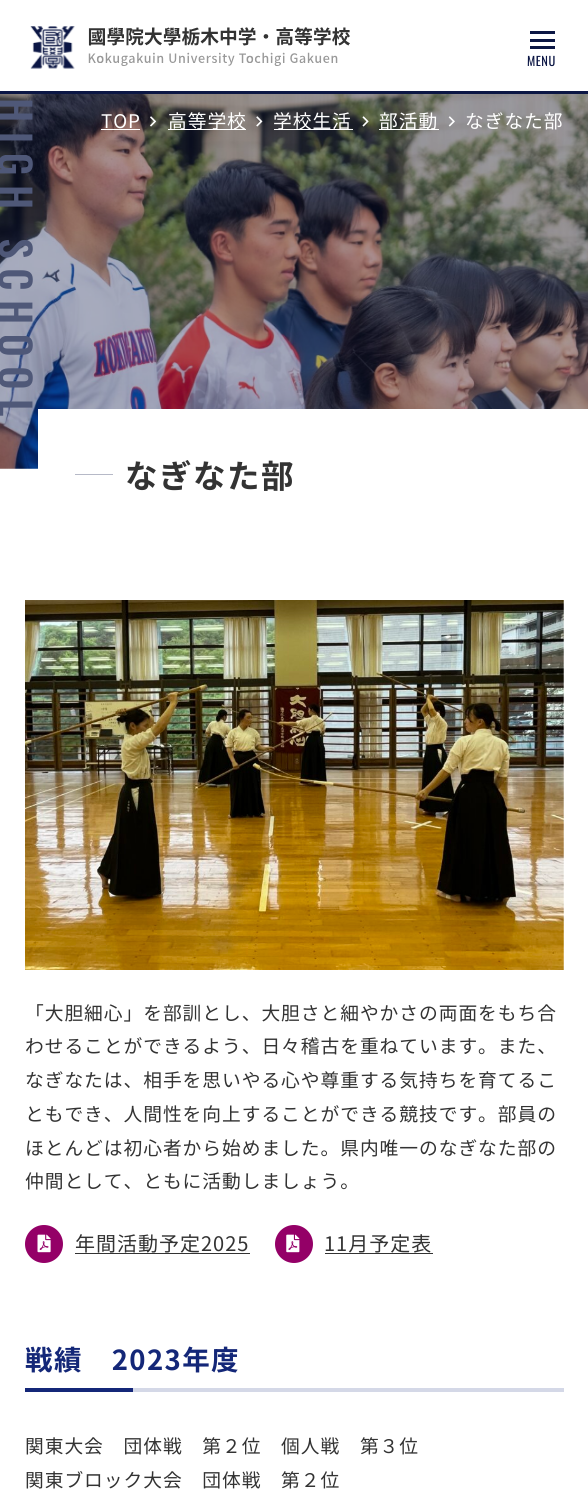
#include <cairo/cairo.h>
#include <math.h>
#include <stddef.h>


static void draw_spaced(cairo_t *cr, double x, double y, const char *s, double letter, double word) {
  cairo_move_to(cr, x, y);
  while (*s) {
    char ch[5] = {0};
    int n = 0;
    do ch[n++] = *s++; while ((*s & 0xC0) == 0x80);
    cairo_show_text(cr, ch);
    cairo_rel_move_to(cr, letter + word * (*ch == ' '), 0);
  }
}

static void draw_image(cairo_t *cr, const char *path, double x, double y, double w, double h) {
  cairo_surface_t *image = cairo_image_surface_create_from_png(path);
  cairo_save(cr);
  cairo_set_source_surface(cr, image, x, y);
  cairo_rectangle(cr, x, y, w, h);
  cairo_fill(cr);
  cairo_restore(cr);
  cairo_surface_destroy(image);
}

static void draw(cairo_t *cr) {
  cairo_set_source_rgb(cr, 1, 1, 1);
  cairo_paint(cr);
  cairo_set_source_rgb(cr, 11 / 255.0, 22 / 255.0, 68 / 255.0);
  cairo_rectangle(cr, 0, 91, 588, 3);
  cairo_fill(cr);
  draw_image(cr, "images/1.png", 30, 26, 320, 43);
  cairo_rectangle(cr, 530, 39, 25, 3);
  cairo_fill(cr);
  cairo_rectangle(cr, 530, 31, 25, 3);
  cairo_fill(cr);
  cairo_rectangle(cr, 530, 46, 25, 3);
  cairo_fill(cr);
  draw_image(cr, "images/2.png", 0, 94, 588, 375);
  cairo_set_source_rgb(cr, 1, 1, 1);
  cairo_rectangle(cr, 38, 409, 550, 60);
  cairo_fill(cr);
  cairo_set_source_rgb(cr, 182 / 255.0, 185 / 255.0, 199 / 255.0);
  cairo_rectangle(cr, 75, 474, 38, 1);
  cairo_fill(cr);
  cairo_set_source_rgb(cr, 1, 1, 1);
  cairo_rectangle(cr, 101, 129, 39, 1);
  cairo_fill(cr);
  draw_image(cr, "images/3.png", 150, 116, 7, 11);
  cairo_rectangle(cr, 168, 129, 78, 1);
  cairo_fill(cr);
  draw_image(cr, "images/4.png", 256, 116, 7, 11);
  cairo_rectangle(cr, 274, 129, 79, 1);
  cairo_fill(cr);
  draw_image(cr, "images/5.png", 362, 116, 7, 11);
  cairo_rectangle(cr, 379, 129, 60, 1);
  cairo_fill(cr);
  draw_image(cr, "images/6.png", 448, 116, 7, 11);
  draw_image(cr, "images/7.png", 25, 600, 539, 370);
  cairo_set_source_rgb(cr, 148 / 255.0, 0, 103 / 255.0);
  cairo_arc(cr, 44, 1244, 19, 0, 2 * M_PI);
  cairo_fill(cr);
  draw_image(cr, "images/8.png", 37, 1234, 14, 19);
  cairo_set_source_rgb(cr, 51 / 255.0, 51 / 255.0, 51 / 255.0);
  cairo_rectangle(cr, 75, 1253, 175, 1);
  cairo_fill(cr);
  cairo_set_source_rgb(cr, 148 / 255.0, 0, 103 / 255.0);
  cairo_arc(cr, 294, 1244, 19, 0, 2 * M_PI);
  cairo_fill(cr);
  draw_image(cr, "images/9.png", 286, 1234, 14, 19);
  cairo_set_source_rgb(cr, 51 / 255.0, 51 / 255.0, 51 / 255.0);
  cairo_rectangle(cr, 325, 1253, 108, 1);
  cairo_fill(cr);
  cairo_set_source_rgb(cr, 20 / 255.0, 39 / 255.0, 120 / 255.0);
  cairo_rectangle(cr, 25, 1388, 108, 4);
  cairo_fill(cr);
  cairo_set_source_rgb(cr, 212 / 255.0, 216 / 255.0, 231 / 255.0);
  cairo_rectangle(cr, 133, 1388, 431, 4);
  cairo_fill(cr);
  cairo_select_font_face(cr, "Oswald", CAIRO_FONT_SLANT_NORMAL, CAIRO_FONT_WEIGHT_NORMAL);
  cairo_set_font_size(cr, 12.5);
  cairo_set_source_rgb(cr, 11 / 255.0, 22 / 255.0, 68 / 255.0);
  draw_spaced(cr, 527, 66, "MENU", 0.5, 0);
  cairo_select_font_face(cr, "Oswald Medium", CAIRO_FONT_SLANT_NORMAL, CAIRO_FONT_WEIGHT_NORMAL);
  cairo_set_font_size(cr, 41.25);
  cairo_set_source_rgb(cr, 79 / 255.0, 88 / 255.0, 120 / 255.0);
  cairo_save(cr);
  cairo_translate(cr, -1, 98);
  cairo_rotate(cr, 90 * M_PI / 180);
  draw_spaced(cr, 0, 0, "HIGH SCHOOL", 9.5, 0);
  cairo_restore(cr);
  cairo_select_font_face(cr, "Noto Sans JP", CAIRO_FONT_SLANT_NORMAL, CAIRO_FONT_WEIGHT_BOLD);
  cairo_set_font_size(cr, 32.5);
  cairo_set_source_rgb(cr, 51 / 255.0, 51 / 255.0, 51 / 255.0);
  draw_spaced(cr, 125, 488, "なぎなた部", 1.5, 0);
  cairo_select_font_face(cr, "Noto Sans JP", CAIRO_FONT_SLANT_NORMAL, CAIRO_FONT_WEIGHT_NORMAL);
  cairo_set_font_size(cr, 18.75);
  cairo_set_source_rgb(cr, 1, 1, 1);
  draw_spaced(cr, 101, 128, "TOP", 0.95, 0);
  draw_spaced(cr, 168, 128, "高等学校", 0.95, 0);
  draw_spaced(cr, 273, 128, "学校生活", 0.95, 0);
  draw_spaced(cr, 379, 128, "部活動", 0.95, 0);
  draw_spaced(cr, 465, 128, "なぎなた部", 0.95, 0);
  cairo_set_source_rgb(cr, 51 / 255.0, 51 / 255.0, 51 / 255.0);
  draw_spaced(cr, 25, 1020, "「大胆細心」を部訓とし、大胆さと細やかさの両面をもち合", 0.95, 0);
  draw_spaced(cr, 25, 1053, "わせることができるよう、日々稽古を重ねています。また、", 0.95, 0);
  draw_spaced(cr, 25, 1087, "なぎなたは、相手を思いやる心や尊重する気持ちを育てるこ", 0.95, 0);
  draw_spaced(cr, 25, 1121, "ともでき、人間性を向上することができる競技です。部員の", 0.95, 0);
  draw_spaced(cr, 25, 1155, "ほとんどは初心者から始めました。県内唯一のなぎなた部の", 0.95, 0);
  draw_spaced(cr, 25, 1188, "仲間として、ともに活動しましょう。", 0.95, 0);
  cairo_set_font_size(cr, 20);
  draw_spaced(cr, 75, 1251, "年間活動予定2025", 1, 0);
  draw_spaced(cr, 324, 1251, "11月予定表", 1, 0);
  cairo_select_font_face(cr, "Noto Sans JP", CAIRO_FONT_SLANT_NORMAL, CAIRO_FONT_WEIGHT_BOLD);
  cairo_set_font_size(cr, 27.5);
  cairo_set_source_rgb(cr, 20 / 255.0, 39 / 255.0, 120 / 255.0);
  draw_spaced(cr, 25, 1370, "戦績　2023年度", 1.4, 0);
  cairo_select_font_face(cr, "Noto Sans JP", CAIRO_FONT_SLANT_NORMAL, CAIRO_FONT_WEIGHT_NORMAL);
  cairo_set_font_size(cr, 18.75);
  cairo_set_source_rgb(cr, 51 / 255.0, 51 / 255.0, 51 / 255.0);
  draw_spaced(cr, 25, 1453, "関東大会　団体戦　第２位　個人戦　第３位", 0.95, 0);
  draw_spaced(cr, 25, 1487, "関東ブロック大会　団体戦　第２位", 0.95, 0);
}

int main(void) {
  cairo_surface_t *surface = cairo_image_surface_create(CAIRO_FORMAT_RGB24, 588, 1493);
  cairo_t *cr = cairo_create(surface);
  cairo_font_options_t *options = cairo_font_options_create();
  cairo_font_options_set_hint_metrics(options, CAIRO_HINT_METRICS_OFF);
  cairo_font_options_set_hint_style(options, CAIRO_HINT_STYLE_NONE);
  cairo_set_font_options(cr, options);
  cairo_set_miter_limit(cr, 4);
  draw(cr);
  cairo_surface_write_to_png(surface, "out.png");
  cairo_font_options_destroy(options);
  cairo_destroy(cr);
  cairo_surface_destroy(surface);
  return 0;
}
